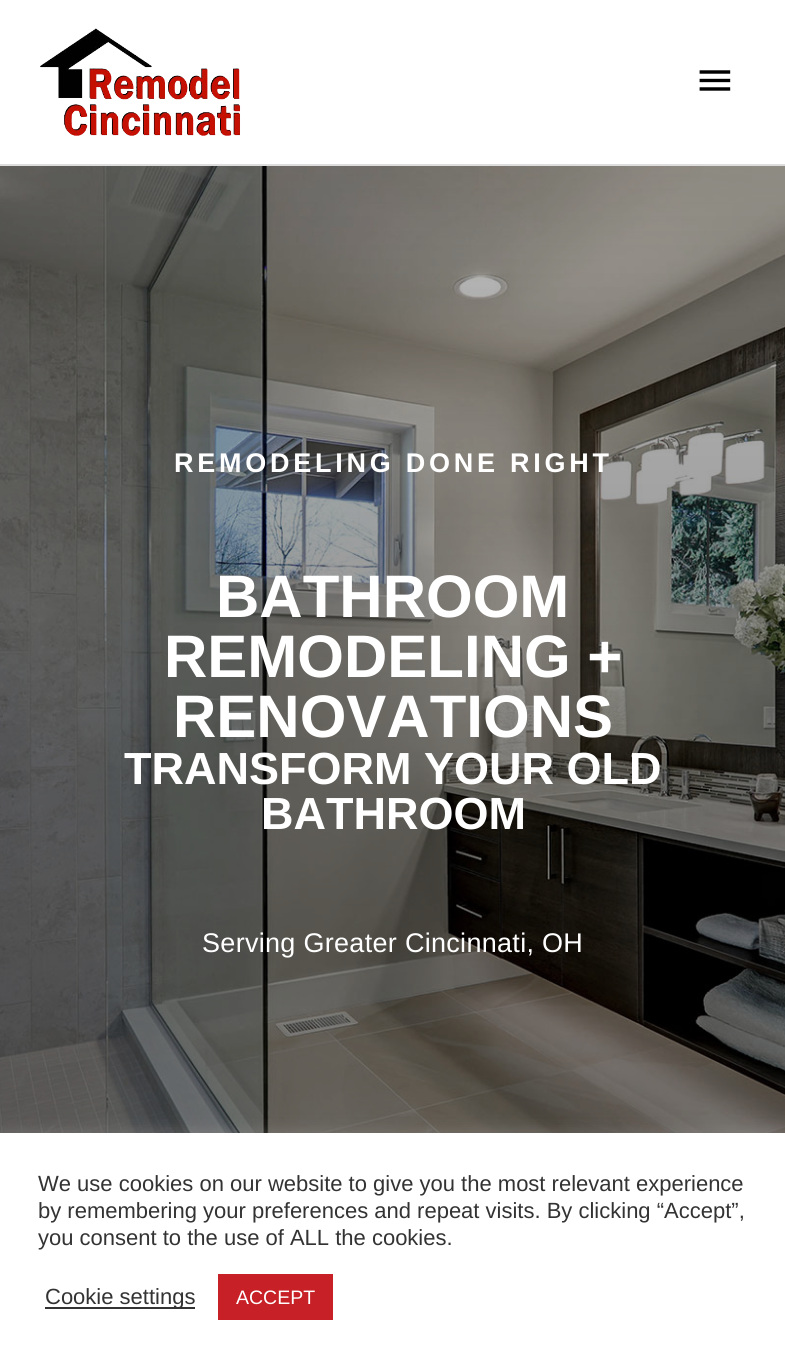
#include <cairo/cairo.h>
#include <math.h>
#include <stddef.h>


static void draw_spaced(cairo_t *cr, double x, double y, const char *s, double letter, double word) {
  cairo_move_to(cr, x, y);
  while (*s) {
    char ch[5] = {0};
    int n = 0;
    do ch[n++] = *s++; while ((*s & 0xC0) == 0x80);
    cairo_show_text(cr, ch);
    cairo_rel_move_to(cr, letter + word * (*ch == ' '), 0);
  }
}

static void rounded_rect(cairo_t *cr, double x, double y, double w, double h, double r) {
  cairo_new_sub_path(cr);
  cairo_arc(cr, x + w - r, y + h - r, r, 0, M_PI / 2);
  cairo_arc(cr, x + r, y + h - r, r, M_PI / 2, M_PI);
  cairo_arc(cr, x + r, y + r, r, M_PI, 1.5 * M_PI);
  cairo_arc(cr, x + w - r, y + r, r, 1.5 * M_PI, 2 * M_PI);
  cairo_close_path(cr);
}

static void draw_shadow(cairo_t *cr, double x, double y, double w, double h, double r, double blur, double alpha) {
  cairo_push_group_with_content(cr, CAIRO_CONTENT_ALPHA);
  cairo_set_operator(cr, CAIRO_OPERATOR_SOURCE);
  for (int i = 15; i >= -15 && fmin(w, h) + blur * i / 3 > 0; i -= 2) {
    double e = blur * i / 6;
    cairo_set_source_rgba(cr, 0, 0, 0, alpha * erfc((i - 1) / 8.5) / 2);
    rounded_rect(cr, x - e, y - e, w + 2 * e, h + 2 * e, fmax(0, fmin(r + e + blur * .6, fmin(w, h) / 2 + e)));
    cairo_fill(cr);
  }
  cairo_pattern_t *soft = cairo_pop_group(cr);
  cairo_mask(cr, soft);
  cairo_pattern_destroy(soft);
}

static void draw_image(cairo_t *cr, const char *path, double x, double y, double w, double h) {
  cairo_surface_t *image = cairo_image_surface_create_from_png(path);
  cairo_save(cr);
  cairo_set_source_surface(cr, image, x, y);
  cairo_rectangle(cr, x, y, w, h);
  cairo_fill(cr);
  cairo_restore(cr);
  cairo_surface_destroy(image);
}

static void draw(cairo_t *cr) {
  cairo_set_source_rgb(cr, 1, 1, 1);
  cairo_paint(cr);
  cairo_set_source_rgb(cr, 221 / 255.0, 221 / 255.0, 221 / 255.0);
  cairo_rectangle(cr, 0, 164, 785, 2);
  cairo_fill(cr);
  draw_image(cr, "images/1.png", 40, 28, 201, 108);
  draw_image(cr, "images/2.png", 699, 70, 32, 21);
  draw_image(cr, "images/3.png", 0, 166, 785, 967);
  cairo_set_source_rgb(cr, 172 / 255.0, 171 / 255.0, 171 / 255.0);
  draw_shadow(cr, 0, 1131, 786, 233, 0, 7.5, 0.3);
  cairo_set_source_rgb(cr, 1, 1, 1);
  cairo_rectangle(cr, 0, 1133, 785, 231);
  cairo_fill(cr);
  cairo_set_source_rgb(cr, 51 / 255.0, 51 / 255.0, 51 / 255.0);
  cairo_rectangle(cr, 45, 1307, 150, 2);
  cairo_fill(cr);
  cairo_set_source_rgb(cr, 199 / 255.0, 32 / 255.0, 38 / 255.0);
  cairo_rectangle(cr, 218, 1274, 115, 46);
  cairo_fill(cr);
  cairo_select_font_face(cr, "Liberation Sans", CAIRO_FONT_SLANT_NORMAL, CAIRO_FONT_WEIGHT_BOLD);
  cairo_set_font_size(cr, 27);
  cairo_set_source_rgb(cr, 1, 1, 1);
  draw_spaced(cr, 174, 472, "REMODELING DONE RIGHT", 3.75, 0);
  cairo_set_font_size(cr, 60);
  cairo_move_to(cr, 216, 617);
  cairo_show_text(cr, "BATHROOM");
  cairo_move_to(cr, 164, 677);
  cairo_show_text(cr, "REMODELING +");
  cairo_move_to(cr, 173, 737);
  cairo_show_text(cr, "RENOVATIONS");
  cairo_set_font_size(cr, 45);
  cairo_move_to(cr, 124, 784);
  cairo_show_text(cr, "TRANSFORM YOUR OLD");
  cairo_move_to(cr, 261, 829);
  cairo_show_text(cr, "BATHROOM");
  cairo_select_font_face(cr, "Liberation Sans", CAIRO_FONT_SLANT_NORMAL, CAIRO_FONT_WEIGHT_NORMAL);
  cairo_set_font_size(cr, 27);
  draw_spaced(cr, 202, 952, "Serving Greater Cincinnati, OH", 0.3, 0);
  cairo_set_font_size(cr, 22);
  cairo_set_source_rgb(cr, 51 / 255.0, 51 / 255.0, 51 / 255.0);
  cairo_move_to(cr, 38, 1191);
  cairo_show_text(cr, "We use cookies on our website to give you the most relevant experience");
  cairo_move_to(cr, 38, 1218);
  cairo_show_text(cr, "by remembering your preferences and repeat visits. By clicking “Accept”,");
  cairo_move_to(cr, 38, 1245);
  cairo_show_text(cr, "you consent to the use of ALL the cookies.");
  cairo_move_to(cr, 45, 1304);
  cairo_show_text(cr, "Cookie settings");
  cairo_set_font_size(cr, 19.5);
  cairo_set_source_rgb(cr, 1, 1, 1);
  cairo_move_to(cr, 236, 1304);
  cairo_show_text(cr, "ACCEPT");
}

int main(void) {
  cairo_surface_t *surface = cairo_image_surface_create(CAIRO_FORMAT_RGB24, 785, 1364);
  cairo_t *cr = cairo_create(surface);
  cairo_font_options_t *options = cairo_font_options_create();
  cairo_font_options_set_hint_metrics(options, CAIRO_HINT_METRICS_OFF);
  cairo_font_options_set_hint_style(options, CAIRO_HINT_STYLE_NONE);
  cairo_set_font_options(cr, options);
  cairo_set_miter_limit(cr, 4);
  draw(cr);
  cairo_surface_write_to_png(surface, "out.png");
  cairo_font_options_destroy(options);
  cairo_destroy(cr);
  cairo_surface_destroy(surface);
  return 0;
}
